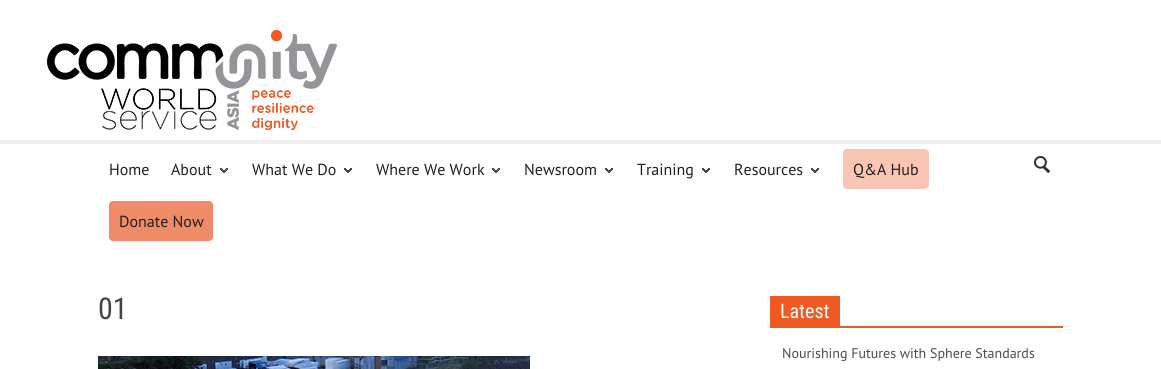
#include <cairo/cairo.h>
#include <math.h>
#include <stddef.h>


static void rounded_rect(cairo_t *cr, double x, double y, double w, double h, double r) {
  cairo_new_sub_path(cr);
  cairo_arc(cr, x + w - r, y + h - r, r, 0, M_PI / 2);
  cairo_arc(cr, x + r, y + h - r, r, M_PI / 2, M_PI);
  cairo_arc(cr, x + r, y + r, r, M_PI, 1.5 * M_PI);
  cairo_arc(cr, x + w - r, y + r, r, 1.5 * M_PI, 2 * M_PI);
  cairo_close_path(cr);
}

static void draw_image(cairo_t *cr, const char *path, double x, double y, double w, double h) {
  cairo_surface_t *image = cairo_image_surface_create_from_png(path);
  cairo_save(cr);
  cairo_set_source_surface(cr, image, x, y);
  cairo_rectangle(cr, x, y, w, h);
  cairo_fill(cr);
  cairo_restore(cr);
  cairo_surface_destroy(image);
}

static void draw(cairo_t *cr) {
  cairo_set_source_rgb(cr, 1, 1, 1);
  cairo_paint(cr);
  draw_image(cr, "images/1.png", 47, 30, 290, 100);
  cairo_set_source_rgb(cr, 240 / 255.0, 240 / 255.0, 240 / 255.0);
  cairo_rectangle(cr, 0, 140, 1161, 4);
  cairo_fill(cr);
  draw_image(cr, "images/2.png", 220, 168, 8, 5);
  draw_image(cr, "images/2.png", 344, 168, 8, 5);
  draw_image(cr, "images/2.png", 492, 168, 8, 5);
  draw_image(cr, "images/2.png", 605, 168, 8, 5);
  draw_image(cr, "images/2.png", 702, 168, 8, 5);
  draw_image(cr, "images/2.png", 811, 168, 8, 5);
  cairo_set_source_rgb(cr, 250 / 255.0, 197 / 255.0, 178 / 255.0);
  rounded_rect(cr, 843, 149, 86, 40, 4);
  cairo_fill(cr);
  cairo_set_source_rgb(cr, 240 / 255.0, 139 / 255.0, 103 / 255.0);
  rounded_rect(cr, 109, 201, 104, 40, 4);
  cairo_fill(cr);
  draw_image(cr, "images/3.png", 1034, 156, 16, 17);
  draw_image(cr, "images/4.png", 98, 356, 432, 13);
  cairo_set_source_rgb(cr, 240 / 255.0, 89 / 255.0, 34 / 255.0);
  cairo_rectangle(cr, 770, 326, 293, 2);
  cairo_fill(cr);
  cairo_rectangle(cr, 770, 296, 70, 30);
  cairo_fill(cr);
  cairo_select_font_face(cr, "PT Sans", CAIRO_FONT_SLANT_NORMAL, CAIRO_FONT_WEIGHT_NORMAL);
  cairo_set_font_size(cr, 16);
  cairo_set_source_rgb(cr, 32 / 255.0, 32 / 255.0, 32 / 255.0);
  cairo_move_to(cr, 109, 175);
  cairo_show_text(cr, "Home");
  cairo_move_to(cr, 171, 175);
  cairo_show_text(cr, "About");
  cairo_move_to(cr, 252, 175);
  cairo_show_text(cr, "What We Do");
  cairo_move_to(cr, 376, 175);
  cairo_show_text(cr, "Where We Work");
  cairo_move_to(cr, 524, 175);
  cairo_show_text(cr, "Newsroom");
  cairo_move_to(cr, 637, 175);
  cairo_show_text(cr, "Training");
  cairo_move_to(cr, 734, 175);
  cairo_show_text(cr, "Resources");
  cairo_move_to(cr, 853, 175);
  cairo_show_text(cr, "Q&A Hub");
  cairo_move_to(cr, 119, 227);
  cairo_show_text(cr, "Donate Now");
  cairo_select_font_face(cr, "Roboto Condensed", CAIRO_FONT_SLANT_NORMAL, CAIRO_FONT_WEIGHT_NORMAL);
  cairo_set_font_size(cr, 30);
  cairo_set_source_rgb(cr, 68 / 255.0, 68 / 255.0, 68 / 255.0);
  cairo_move_to(cr, 98, 319);
  cairo_show_text(cr, "01");
  cairo_set_font_size(cr, 20);
  cairo_set_source_rgb(cr, 1, 1, 1);
  cairo_move_to(cr, 780, 318);
  cairo_show_text(cr, "Latest");
  cairo_select_font_face(cr, "PT Sans", CAIRO_FONT_SLANT_NORMAL, CAIRO_FONT_WEIGHT_NORMAL);
  cairo_set_font_size(cr, 14);
  cairo_set_source_rgb(cr, 75 / 255.0, 75 / 255.0, 75 / 255.0);
  cairo_move_to(cr, 782, 358);
  cairo_show_text(cr, "Nourishing Futures with Sphere Standards");
}

int main(void) {
  cairo_surface_t *surface = cairo_image_surface_create(CAIRO_FORMAT_RGB24, 1161, 369);
  cairo_t *cr = cairo_create(surface);
  cairo_font_options_t *options = cairo_font_options_create();
  cairo_font_options_set_hint_metrics(options, CAIRO_HINT_METRICS_OFF);
  cairo_font_options_set_hint_style(options, CAIRO_HINT_STYLE_NONE);
  cairo_set_font_options(cr, options);
  cairo_set_miter_limit(cr, 4);
  draw(cr);
  cairo_surface_write_to_png(surface, "out.png");
  cairo_font_options_destroy(options);
  cairo_destroy(cr);
  cairo_surface_destroy(surface);
  return 0;
}
